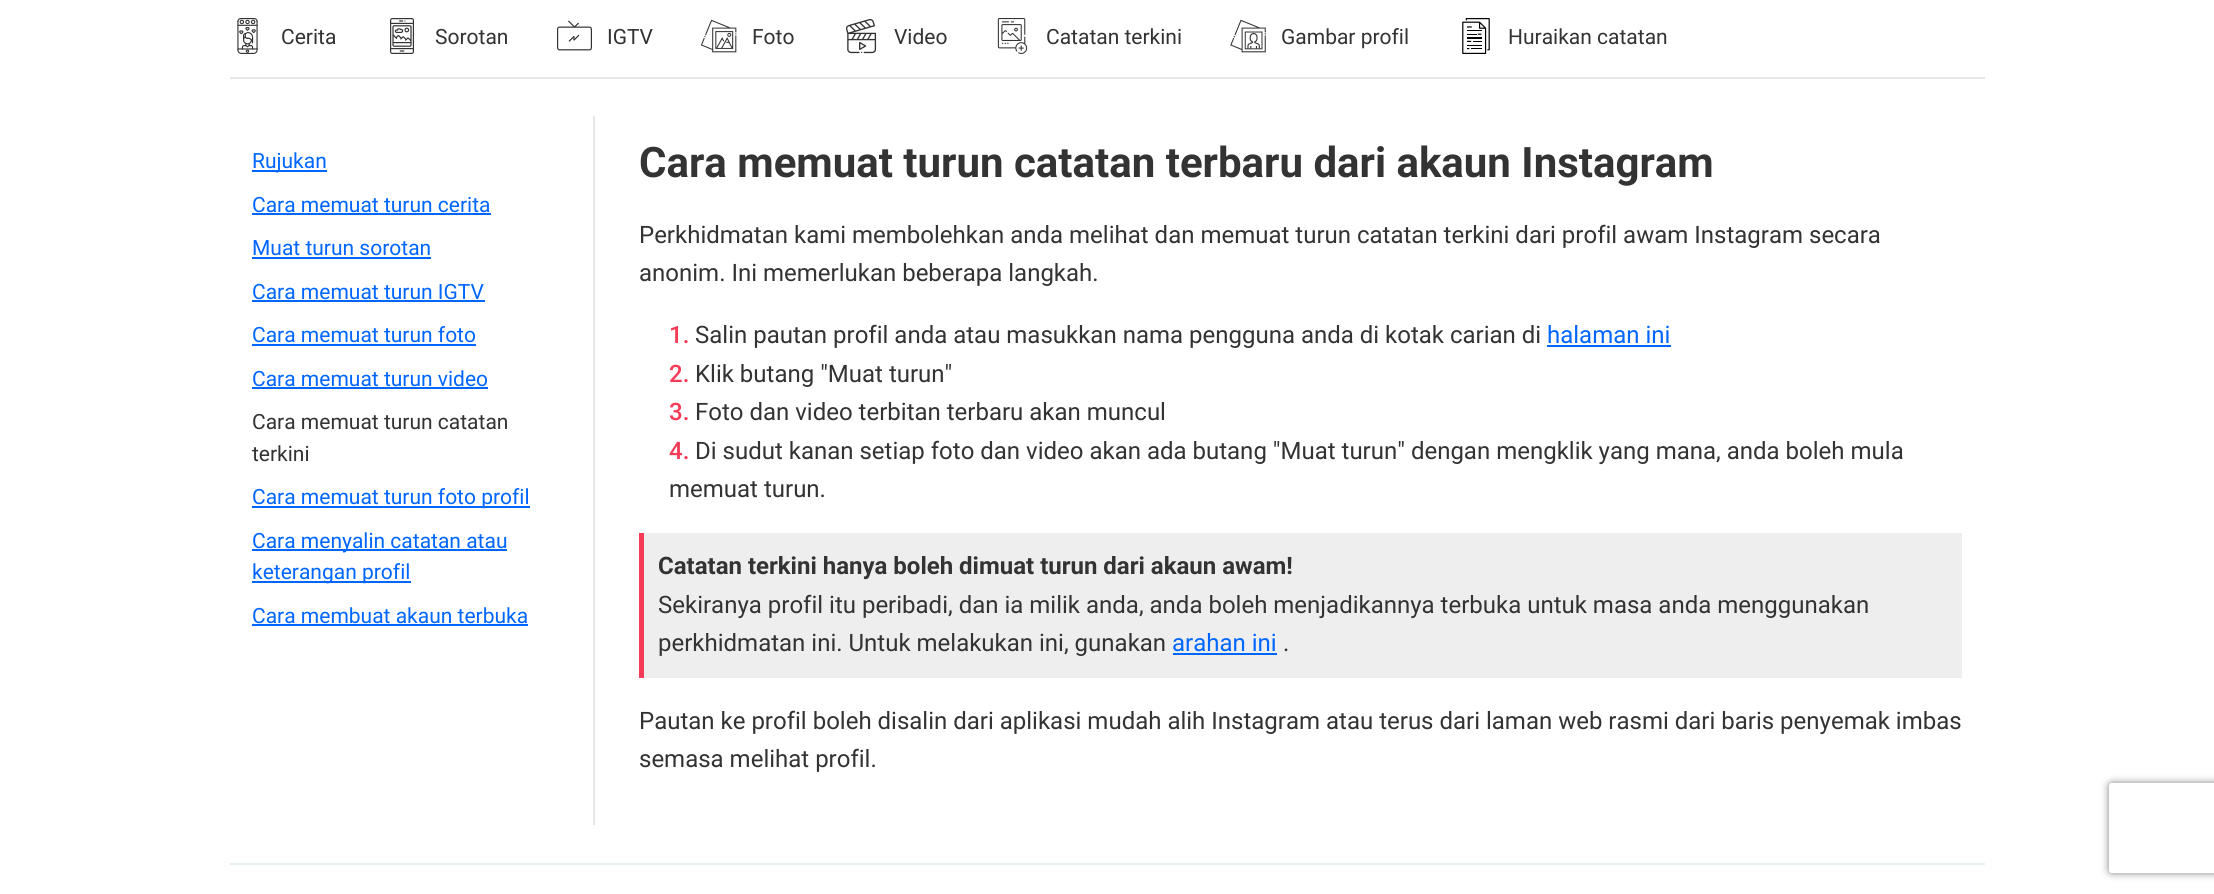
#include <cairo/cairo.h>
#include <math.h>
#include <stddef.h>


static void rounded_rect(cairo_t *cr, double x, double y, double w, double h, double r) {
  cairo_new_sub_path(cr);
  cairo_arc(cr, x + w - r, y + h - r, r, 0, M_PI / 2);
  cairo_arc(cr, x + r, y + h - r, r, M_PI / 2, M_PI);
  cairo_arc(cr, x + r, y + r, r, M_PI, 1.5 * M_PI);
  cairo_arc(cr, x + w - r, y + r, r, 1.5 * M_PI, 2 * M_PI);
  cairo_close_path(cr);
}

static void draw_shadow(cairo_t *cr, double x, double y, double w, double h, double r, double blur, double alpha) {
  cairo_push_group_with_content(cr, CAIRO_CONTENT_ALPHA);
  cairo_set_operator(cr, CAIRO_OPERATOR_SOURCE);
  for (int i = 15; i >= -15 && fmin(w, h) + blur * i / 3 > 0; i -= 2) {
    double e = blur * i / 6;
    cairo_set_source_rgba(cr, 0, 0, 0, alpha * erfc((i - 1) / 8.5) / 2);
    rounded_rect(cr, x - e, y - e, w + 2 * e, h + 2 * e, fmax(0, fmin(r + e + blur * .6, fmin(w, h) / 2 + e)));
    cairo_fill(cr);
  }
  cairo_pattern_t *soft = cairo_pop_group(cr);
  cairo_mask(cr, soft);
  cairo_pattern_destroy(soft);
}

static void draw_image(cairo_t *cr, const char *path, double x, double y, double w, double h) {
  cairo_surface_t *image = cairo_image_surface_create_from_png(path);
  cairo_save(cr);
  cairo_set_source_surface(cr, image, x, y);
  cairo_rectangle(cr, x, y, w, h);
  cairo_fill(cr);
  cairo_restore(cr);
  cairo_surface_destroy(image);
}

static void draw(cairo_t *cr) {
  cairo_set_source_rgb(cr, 1, 1, 1);
  cairo_paint(cr);
  cairo_set_source_rgb(cr, 230 / 255.0, 230 / 255.0, 230 / 255.0);
  cairo_rectangle(cr, 230, 77, 1755, 2);
  cairo_fill(cr);
  draw_image(cr, "images/1.png", 237, 18, 21, 36);
  draw_image(cr, "images/2.png", 390, 18, 24, 36);
  draw_image(cr, "images/3.png", 557, 20, 35, 31);
  draw_image(cr, "images/4.png", 701, 19, 36, 34);
  draw_image(cr, "images/5.png", 846, 18, 31, 36);
  draw_image(cr, "images/6.png", 997, 18, 31, 36);
  draw_image(cr, "images/7.png", 1230, 19, 36, 34);
  draw_image(cr, "images/8.png", 1462, 18, 28, 36);
  cairo_set_source_rgb(cr, 0, 102 / 255.0, 1);
  cairo_rectangle(cr, 252, 170, 75, 2);
  cairo_fill(cr);
  cairo_rectangle(cr, 252, 213, 239, 2);
  cairo_fill(cr);
  cairo_rectangle(cr, 252, 257, 179, 2);
  cairo_fill(cr);
  cairo_rectangle(cr, 252, 300, 233, 2);
  cairo_fill(cr);
  cairo_rectangle(cr, 252, 344, 224, 2);
  cairo_fill(cr);
  cairo_rectangle(cr, 252, 387, 236, 2);
  cairo_fill(cr);
  cairo_rectangle(cr, 252, 506, 278, 2);
  cairo_fill(cr);
  cairo_rectangle(cr, 252, 549, 255, 2);
  cairo_fill(cr);
  cairo_rectangle(cr, 252, 581, 159, 2);
  cairo_fill(cr);
  cairo_rectangle(cr, 252, 624, 276, 2);
  cairo_fill(cr);
  cairo_set_source_rgb(cr, 230 / 255.0, 230 / 255.0, 230 / 255.0);
  cairo_rectangle(cr, 593, 116, 2, 709);
  cairo_fill(cr);
  cairo_set_source_rgb(cr, 0, 102 / 255.0, 1);
  cairo_rectangle(cr, 1547, 345, 124, 2);
  cairo_fill(cr);
  cairo_set_source_rgb(cr, 238 / 255.0, 238 / 255.0, 238 / 255.0);
  cairo_rectangle(cr, 644, 533, 1318, 145);
  cairo_fill(cr);
  cairo_set_source_rgb(cr, 245 / 255.0, 59 / 255.0, 87 / 255.0);
  cairo_rectangle(cr, 639, 533, 5, 145);
  cairo_fill(cr);
  cairo_set_source_rgb(cr, 0, 102 / 255.0, 1);
  cairo_rectangle(cr, 1173, 653, 104, 2);
  cairo_fill(cr);
  cairo_set_source_rgb(cr, 232 / 255.0, 240 / 255.0, 243 / 255.0);
  cairo_rectangle(cr, 230, 863, 1755, 2);
  cairo_fill(cr);
  cairo_save(cr);
  cairo_set_fill_rule(cr, CAIRO_FILL_RULE_EVEN_ODD);
  cairo_new_path(cr);
  cairo_move_to(cr, 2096, 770);
  cairo_line_to(cr, 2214, 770);
  cairo_line_to(cr, 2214, 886);
  cairo_line_to(cr, 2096, 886);
  cairo_close_path(cr);
  cairo_move_to(cr, 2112, 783);
  cairo_line_to(cr, 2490, 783);
  cairo_curve_to(cr, 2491.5, 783, 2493, 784.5, 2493, 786);
  cairo_line_to(cr, 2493, 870);
  cairo_curve_to(cr, 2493, 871.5, 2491.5, 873, 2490, 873);
  cairo_line_to(cr, 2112, 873);
  cairo_curve_to(cr, 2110.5, 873, 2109, 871.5, 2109, 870);
  cairo_line_to(cr, 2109, 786);
  cairo_curve_to(cr, 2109, 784.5, 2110.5, 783, 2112, 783);
  cairo_close_path(cr);
  cairo_clip(cr);
  cairo_set_source_rgb(cr, 128 / 255.0, 128 / 255.0, 128 / 255.0);
  draw_shadow(cr, 2109, 783, 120, 90, 3, 4, 1);
  cairo_restore(cr);
  cairo_select_font_face(cr, "Roboto", CAIRO_FONT_SLANT_NORMAL, CAIRO_FONT_WEIGHT_NORMAL);
  cairo_set_font_size(cr, 21);
  cairo_set_source_rgb(cr, 51 / 255.0, 51 / 255.0, 51 / 255.0);
  cairo_move_to(cr, 281, 44);
  cairo_show_text(cr, "Cerita");
  cairo_move_to(cr, 435, 44);
  cairo_show_text(cr, "Sorotan");
  cairo_move_to(cr, 607, 44);
  cairo_show_text(cr, "IGTV");
  cairo_move_to(cr, 752, 44);
  cairo_show_text(cr, "Foto");
  cairo_move_to(cr, 894, 44);
  cairo_show_text(cr, "Video");
  cairo_move_to(cr, 1046, 44);
  cairo_show_text(cr, "Catatan terkini");
  cairo_move_to(cr, 1281, 44);
  cairo_show_text(cr, "Gambar profil");
  cairo_move_to(cr, 1508, 44);
  cairo_show_text(cr, "Huraikan catatan");
  cairo_set_source_rgb(cr, 0, 102 / 255.0, 1);
  cairo_move_to(cr, 252, 168);
  cairo_show_text(cr, "Rujukan");
  cairo_move_to(cr, 252, 212);
  cairo_show_text(cr, "Cara memuat turun cerita");
  cairo_move_to(cr, 252, 255);
  cairo_show_text(cr, "Muat turun sorotan");
  cairo_move_to(cr, 252, 299);
  cairo_show_text(cr, "Cara memuat turun IGTV");
  cairo_move_to(cr, 252, 342);
  cairo_show_text(cr, "Cara memuat turun foto");
  cairo_move_to(cr, 252, 386);
  cairo_show_text(cr, "Cara memuat turun video");
  cairo_set_source_rgb(cr, 51 / 255.0, 51 / 255.0, 51 / 255.0);
  cairo_move_to(cr, 252, 429);
  cairo_show_text(cr, "Cara memuat turun catatan");
  cairo_move_to(cr, 252, 461);
  cairo_show_text(cr, "terkini");
  cairo_set_source_rgb(cr, 0, 102 / 255.0, 1);
  cairo_move_to(cr, 252, 504);
  cairo_show_text(cr, "Cara memuat turun foto profil");
  cairo_move_to(cr, 252, 548);
  cairo_show_text(cr, "Cara menyalin catatan atau");
  cairo_move_to(cr, 252, 579);
  cairo_show_text(cr, "keterangan profil");
  cairo_move_to(cr, 252, 623);
  cairo_show_text(cr, "Cara membuat akaun terbuka");
  cairo_select_font_face(cr, "Roboto", CAIRO_FONT_SLANT_NORMAL, CAIRO_FONT_WEIGHT_BOLD);
  cairo_set_font_size(cr, 42);
  cairo_set_source_rgb(cr, 51 / 255.0, 51 / 255.0, 51 / 255.0);
  cairo_move_to(cr, 639, 177);
  cairo_show_text(cr, "Cara memuat turun catatan terbaru dari akaun Instagram");
  cairo_select_font_face(cr, "Roboto", CAIRO_FONT_SLANT_NORMAL, CAIRO_FONT_WEIGHT_NORMAL);
  cairo_set_font_size(cr, 24);
  cairo_move_to(cr, 639, 243);
  cairo_show_text(cr, "Perkhidmatan kami membolehkan anda melihat dan memuat turun catatan terkini dari profil awam Instagram secara");
  cairo_move_to(cr, 639, 281);
  cairo_show_text(cr, "anonim. Ini memerlukan beberapa langkah.");
  cairo_select_font_face(cr, "Roboto Medium", CAIRO_FONT_SLANT_NORMAL, CAIRO_FONT_WEIGHT_NORMAL);
  cairo_set_source_rgb(cr, 245 / 255.0, 59 / 255.0, 87 / 255.0);
  cairo_move_to(cr, 669, 343);
  cairo_show_text(cr, "1.");
  cairo_select_font_face(cr, "Roboto", CAIRO_FONT_SLANT_NORMAL, CAIRO_FONT_WEIGHT_NORMAL);
  cairo_set_source_rgb(cr, 51 / 255.0, 51 / 255.0, 51 / 255.0);
  cairo_move_to(cr, 695, 343);
  cairo_show_text(cr, "Salin pautan profil anda atau masukkan nama pengguna anda di kotak carian di");
  cairo_set_source_rgb(cr, 0, 102 / 255.0, 1);
  cairo_move_to(cr, 1547, 343);
  cairo_show_text(cr, "halaman ini");
  cairo_select_font_face(cr, "Roboto Medium", CAIRO_FONT_SLANT_NORMAL, CAIRO_FONT_WEIGHT_NORMAL);
  cairo_set_source_rgb(cr, 245 / 255.0, 59 / 255.0, 87 / 255.0);
  cairo_move_to(cr, 669, 382);
  cairo_show_text(cr, "2.");
  cairo_select_font_face(cr, "Roboto", CAIRO_FONT_SLANT_NORMAL, CAIRO_FONT_WEIGHT_NORMAL);
  cairo_set_source_rgb(cr, 51 / 255.0, 51 / 255.0, 51 / 255.0);
  cairo_move_to(cr, 695, 382);
  cairo_show_text(cr, "Klik butang \"Muat turun\"");
  cairo_select_font_face(cr, "Roboto Medium", CAIRO_FONT_SLANT_NORMAL, CAIRO_FONT_WEIGHT_NORMAL);
  cairo_set_source_rgb(cr, 245 / 255.0, 59 / 255.0, 87 / 255.0);
  cairo_move_to(cr, 669, 420);
  cairo_show_text(cr, "3.");
  cairo_select_font_face(cr, "Roboto", CAIRO_FONT_SLANT_NORMAL, CAIRO_FONT_WEIGHT_NORMAL);
  cairo_set_source_rgb(cr, 51 / 255.0, 51 / 255.0, 51 / 255.0);
  cairo_move_to(cr, 695, 420);
  cairo_show_text(cr, "Foto dan video terbitan terbaru akan muncul");
  cairo_select_font_face(cr, "Roboto Medium", CAIRO_FONT_SLANT_NORMAL, CAIRO_FONT_WEIGHT_NORMAL);
  cairo_set_source_rgb(cr, 245 / 255.0, 59 / 255.0, 87 / 255.0);
  cairo_move_to(cr, 669, 459);
  cairo_show_text(cr, "4.");
  cairo_select_font_face(cr, "Roboto", CAIRO_FONT_SLANT_NORMAL, CAIRO_FONT_WEIGHT_NORMAL);
  cairo_set_source_rgb(cr, 51 / 255.0, 51 / 255.0, 51 / 255.0);
  cairo_move_to(cr, 695, 459);
  cairo_show_text(cr, "Di sudut kanan setiap foto dan video akan ada butang \"Muat turun\" dengan mengklik yang mana, anda boleh mula");
  cairo_move_to(cr, 669, 497);
  cairo_show_text(cr, "memuat turun.");
  cairo_select_font_face(cr, "Roboto", CAIRO_FONT_SLANT_NORMAL, CAIRO_FONT_WEIGHT_BOLD);
  cairo_move_to(cr, 658, 574);
  cairo_show_text(cr, "Catatan terkini hanya boleh dimuat turun dari akaun awam!");
  cairo_select_font_face(cr, "Roboto", CAIRO_FONT_SLANT_NORMAL, CAIRO_FONT_WEIGHT_NORMAL);
  cairo_move_to(cr, 658, 613);
  cairo_show_text(cr, "Sekiranya profil itu peribadi, dan ia milik anda, anda boleh menjadikannya terbuka untuk masa anda menggunakan");
  cairo_move_to(cr, 658, 651);
  cairo_show_text(cr, "perkhidmatan ini. Untuk melakukan ini, gunakan");
  cairo_set_source_rgb(cr, 0, 102 / 255.0, 1);
  cairo_move_to(cr, 1172, 651);
  cairo_show_text(cr, "arahan ini");
  cairo_set_source_rgb(cr, 51 / 255.0, 51 / 255.0, 51 / 255.0);
  cairo_move_to(cr, 1283, 651);
  cairo_show_text(cr, ".");
  cairo_move_to(cr, 639, 729);
  cairo_show_text(cr, "Pautan ke profil boleh disalin dari aplikasi mudah alih Instagram atau terus dari laman web rasmi dari baris penyemak imbas");
  cairo_move_to(cr, 639, 767);
  cairo_show_text(cr, "semasa melihat profil.");
}

int main(void) {
  cairo_surface_t *surface = cairo_image_surface_create(CAIRO_FORMAT_RGB24, 2214, 894);
  cairo_t *cr = cairo_create(surface);
  cairo_font_options_t *options = cairo_font_options_create();
  cairo_font_options_set_hint_metrics(options, CAIRO_HINT_METRICS_OFF);
  cairo_font_options_set_hint_style(options, CAIRO_HINT_STYLE_NONE);
  cairo_set_font_options(cr, options);
  cairo_set_miter_limit(cr, 4);
  draw(cr);
  cairo_surface_write_to_png(surface, "out.png");
  cairo_font_options_destroy(options);
  cairo_destroy(cr);
  cairo_surface_destroy(surface);
  return 0;
}
